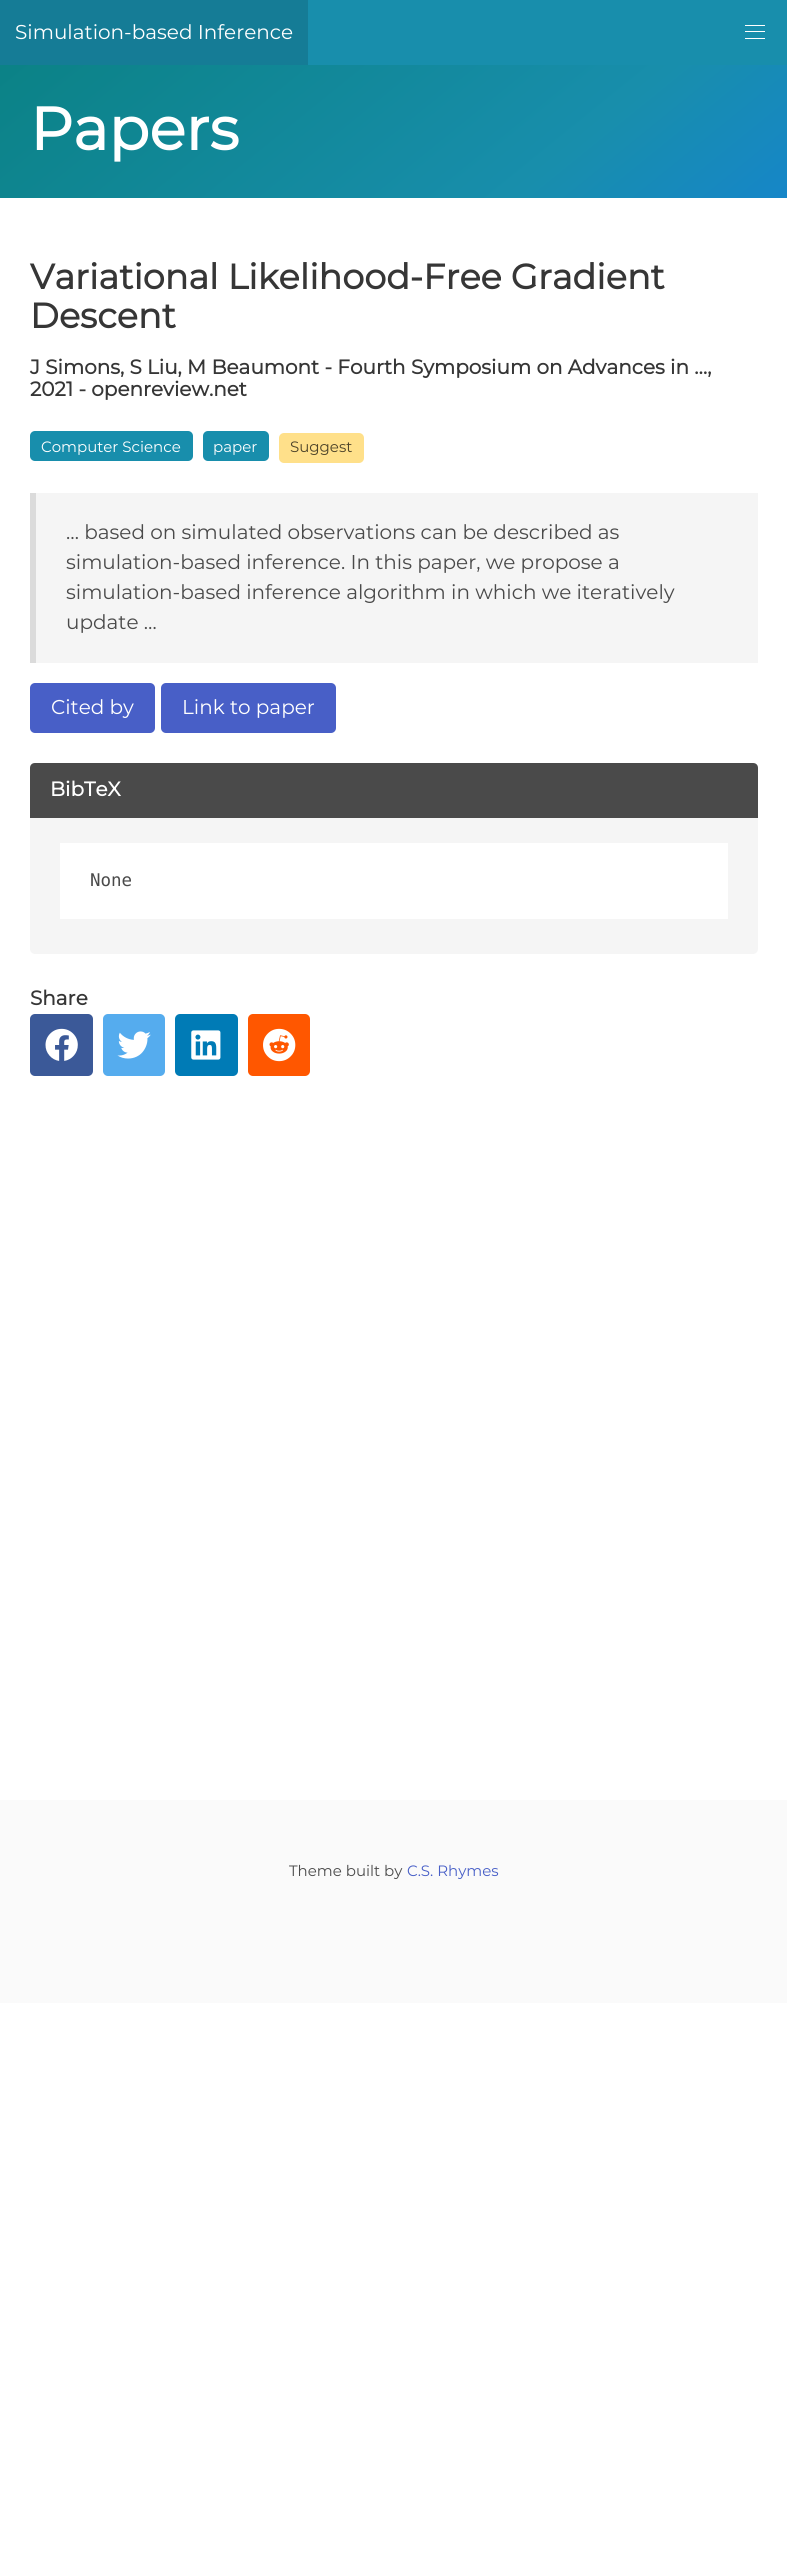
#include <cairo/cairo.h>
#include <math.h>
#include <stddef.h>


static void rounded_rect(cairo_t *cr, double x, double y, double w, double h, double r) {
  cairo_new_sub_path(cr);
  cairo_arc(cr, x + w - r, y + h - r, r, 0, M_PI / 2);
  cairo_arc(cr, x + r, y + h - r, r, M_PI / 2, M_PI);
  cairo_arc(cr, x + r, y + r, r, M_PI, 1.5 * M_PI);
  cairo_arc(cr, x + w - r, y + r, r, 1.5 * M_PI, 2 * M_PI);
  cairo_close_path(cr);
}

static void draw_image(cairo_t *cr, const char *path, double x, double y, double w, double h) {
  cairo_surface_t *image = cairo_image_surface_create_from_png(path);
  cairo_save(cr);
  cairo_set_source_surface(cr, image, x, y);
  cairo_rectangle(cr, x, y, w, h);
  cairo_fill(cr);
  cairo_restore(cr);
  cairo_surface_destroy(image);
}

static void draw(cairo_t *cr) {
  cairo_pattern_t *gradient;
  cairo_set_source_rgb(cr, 1, 1, 1);
  cairo_paint(cr);
  cairo_set_source_rgb(cr, 24 / 255.0, 142 / 255.0, 172 / 255.0);
  cairo_rectangle(cr, 308, 0, 479, 65);
  cairo_fill(cr);
  cairo_set_source_rgb(cr, 21 / 255.0, 124 / 255.0, 150 / 255.0);
  cairo_rectangle(cr, 0, 0, 308, 65);
  cairo_fill(cr);
  cairo_set_source_rgb(cr, 1, 1, 1);
  cairo_rectangle(cr, 745, 25, 20, 1);
  cairo_fill(cr);
  cairo_rectangle(cr, 745, 31, 20, 1);
  cairo_fill(cr);
  cairo_rectangle(cr, 745, 38, 20, 1);
  cairo_fill(cr);
  gradient = cairo_pattern_create_linear(205, -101, 582, 364);
  cairo_pattern_add_color_stop_rgba(gradient, 0, 11 / 255.0, 130 / 255.0, 134 / 255.0, 1);
  cairo_pattern_add_color_stop_rgba(gradient, 0.71, 24 / 255.0, 142 / 255.0, 172 / 255.0, 1);
  cairo_pattern_add_color_stop_rgba(gradient, 1, 22 / 255.0, 134 / 255.0, 200 / 255.0, 1);
  cairo_set_source(cr, gradient);
  cairo_pattern_destroy(gradient);
  cairo_rectangle(cr, 0, 65, 787, 133);
  cairo_fill(cr);
  cairo_set_source_rgb(cr, 24 / 255.0, 142 / 255.0, 172 / 255.0);
  rounded_rect(cr, 30, 431, 163, 30, 5);
  cairo_fill(cr);
  rounded_rect(cr, 203, 431, 66, 30, 5);
  cairo_fill(cr);
  cairo_set_source_rgb(cr, 1, 224 / 255.0, 138 / 255.0);
  rounded_rect(cr, 279, 433, 85, 30, 5);
  cairo_fill(cr);
  cairo_set_source_rgb(cr, 245 / 255.0, 245 / 255.0, 245 / 255.0);
  cairo_rectangle(cr, 36, 493, 722, 170);
  cairo_fill(cr);
  cairo_set_source_rgb(cr, 219 / 255.0, 219 / 255.0, 219 / 255.0);
  cairo_rectangle(cr, 30, 493, 6, 170);
  cairo_fill(cr);
  cairo_set_source_rgb(cr, 72 / 255.0, 95 / 255.0, 199 / 255.0);
  rounded_rect(cr, 30, 683, 125, 50, 5);
  cairo_fill(cr);
  rounded_rect(cr, 161, 683, 175, 50, 5);
  cairo_fill(cr);
  cairo_set_source_rgb(cr, 245 / 255.0, 245 / 255.0, 245 / 255.0);
  rounded_rect(cr, 30, 763, 728, 191, 5);
  cairo_fill(cr);
  cairo_set_source_rgb(cr, 74 / 255.0, 74 / 255.0, 74 / 255.0);
  cairo_new_path(cr);
  cairo_move_to(cr, 35, 763);
  cairo_line_to(cr, 753, 763);
  cairo_curve_to(cr, 756, 763, 758, 765, 758, 768);
  cairo_line_to(cr, 758, 818);
  cairo_line_to(cr, 30, 818);
  cairo_line_to(cr, 30, 768);
  cairo_curve_to(cr, 30, 765, 32, 763, 35, 763);
  cairo_close_path(cr);
  cairo_fill(cr);
  cairo_set_source_rgb(cr, 1, 1, 1);
  cairo_rectangle(cr, 60, 843, 668, 76);
  cairo_fill(cr);
  cairo_set_source_rgb(cr, 59 / 255.0, 89 / 255.0, 152 / 255.0);
  rounded_rect(cr, 30, 1014, 63, 62, 5);
  cairo_fill(cr);
  draw_image(cr, "images/1.png", 45, 1028, 33, 33);
  cairo_set_source_rgb(cr, 85 / 255.0, 172 / 255.0, 238 / 255.0);
  rounded_rect(cr, 103, 1014, 62, 62, 5);
  cairo_fill(cr);
  draw_image(cr, "images/2.png", 117, 1031, 34, 28);
  cairo_set_source_rgb(cr, 0, 123 / 255.0, 182 / 255.0);
  rounded_rect(cr, 175, 1014, 63, 62, 5);
  cairo_fill(cr);
  draw_image(cr, "images/3.png", 191, 1030, 30, 30);
  cairo_set_source_rgb(cr, 1, 87 / 255.0, 0);
  rounded_rect(cr, 248, 1014, 62, 62, 5);
  cairo_fill(cr);
  draw_image(cr, "images/4.png", 263, 1028, 33, 34);
  cairo_set_source_rgb(cr, 250 / 255.0, 250 / 255.0, 250 / 255.0);
  cairo_rectangle(cr, 0, 1800, 787, 203);
  cairo_fill(cr);
  cairo_select_font_face(cr, "Montserrat Thin", CAIRO_FONT_SLANT_NORMAL, CAIRO_FONT_WEIGHT_NORMAL);
  cairo_set_font_size(cr, 20);
  cairo_set_source_rgb(cr, 1, 1, 1);
  cairo_move_to(cr, 15, 39);
  cairo_show_text(cr, "Simulation-based Inference");
  cairo_select_font_face(cr, "Montserrat", CAIRO_FONT_SLANT_NORMAL, CAIRO_FONT_WEIGHT_BOLD);
  cairo_set_font_size(cr, 60);
  cairo_move_to(cr, 30, 150);
  cairo_show_text(cr, "Papers");
  cairo_set_font_size(cr, 35);
  cairo_set_source_rgb(cr, 54 / 255.0, 54 / 255.0, 54 / 255.0);
  cairo_move_to(cr, 30, 289);
  cairo_show_text(cr, "Variational Likelihood-Free Gradient");
  cairo_move_to(cr, 30, 328);
  cairo_show_text(cr, "Descent");
  cairo_set_font_size(cr, 20);
  cairo_move_to(cr, 30, 374);
  cairo_show_text(cr, "J Simons, S Liu, M Beaumont - Fourth Symposium on Advances in …,");
  cairo_move_to(cr, 30, 396);
  cairo_show_text(cr, "2021 - openreview.net");
  cairo_select_font_face(cr, "Montserrat Thin", CAIRO_FONT_SLANT_NORMAL, CAIRO_FONT_WEIGHT_NORMAL);
  cairo_set_font_size(cr, 15);
  cairo_set_source_rgb(cr, 1, 1, 1);
  cairo_move_to(cr, 41, 452);
  cairo_show_text(cr, "Computer Science");
  cairo_move_to(cr, 213, 452);
  cairo_show_text(cr, "paper");
  cairo_set_source_rgb(cr, 77 / 255.0, 67 / 255.0, 41 / 255.0);
  cairo_move_to(cr, 290, 452);
  cairo_show_text(cr, "Suggest");
  cairo_set_font_size(cr, 20);
  cairo_set_source_rgb(cr, 74 / 255.0, 74 / 255.0, 74 / 255.0);
  cairo_move_to(cr, 66, 539);
  cairo_show_text(cr, "… based on simulated observations can be described as");
  cairo_move_to(cr, 66, 569);
  cairo_show_text(cr, "simulation-based inference. In this paper, we propose a");
  cairo_move_to(cr, 66, 599);
  cairo_show_text(cr, "simulation-based inference algorithm in which we iteratively");
  cairo_move_to(cr, 66, 629);
  cairo_show_text(cr, "update …");
  cairo_set_source_rgb(cr, 1, 1, 1);
  cairo_move_to(cr, 51, 714);
  cairo_show_text(cr, "Cited by");
  cairo_move_to(cr, 182, 714);
  cairo_show_text(cr, "Link to paper");
  cairo_select_font_face(cr, "Montserrat", CAIRO_FONT_SLANT_NORMAL, CAIRO_FONT_WEIGHT_BOLD);
  cairo_move_to(cr, 50, 796);
  cairo_show_text(cr, "BibTeX");
  cairo_select_font_face(cr, "DejaVu Sans Mono", CAIRO_FONT_SLANT_NORMAL, CAIRO_FONT_WEIGHT_NORMAL);
  cairo_set_font_size(cr, 17.5);
  cairo_set_source_rgb(cr, 74 / 255.0, 74 / 255.0, 74 / 255.0);
  cairo_move_to(cr, 90, 886);
  cairo_show_text(cr, "None");
  cairo_select_font_face(cr, "Montserrat", CAIRO_FONT_SLANT_NORMAL, CAIRO_FONT_WEIGHT_BOLD);
  cairo_set_font_size(cr, 20);
  cairo_set_source_rgb(cr, 54 / 255.0, 54 / 255.0, 54 / 255.0);
  cairo_move_to(cr, 30, 1005);
  cairo_show_text(cr, "Share");
  cairo_select_font_face(cr, "Montserrat Thin", CAIRO_FONT_SLANT_NORMAL, CAIRO_FONT_WEIGHT_NORMAL);
  cairo_set_font_size(cr, 15);
  cairo_set_source_rgb(cr, 74 / 255.0, 74 / 255.0, 74 / 255.0);
  cairo_move_to(cr, 289, 1876);
  cairo_show_text(cr, "Theme built by");
  cairo_set_source_rgb(cr, 72 / 255.0, 95 / 255.0, 199 / 255.0);
  cairo_move_to(cr, 407, 1876);
  cairo_show_text(cr, "C.S. Rhymes");
}

int main(void) {
  cairo_surface_t *surface = cairo_image_surface_create(CAIRO_FORMAT_RGB24, 787, 2564);
  cairo_t *cr = cairo_create(surface);
  cairo_font_options_t *options = cairo_font_options_create();
  cairo_font_options_set_hint_metrics(options, CAIRO_HINT_METRICS_OFF);
  cairo_font_options_set_hint_style(options, CAIRO_HINT_STYLE_NONE);
  cairo_set_font_options(cr, options);
  cairo_set_miter_limit(cr, 4);
  draw(cr);
  cairo_surface_write_to_png(surface, "out.png");
  cairo_font_options_destroy(options);
  cairo_destroy(cr);
  cairo_surface_destroy(surface);
  return 0;
}
